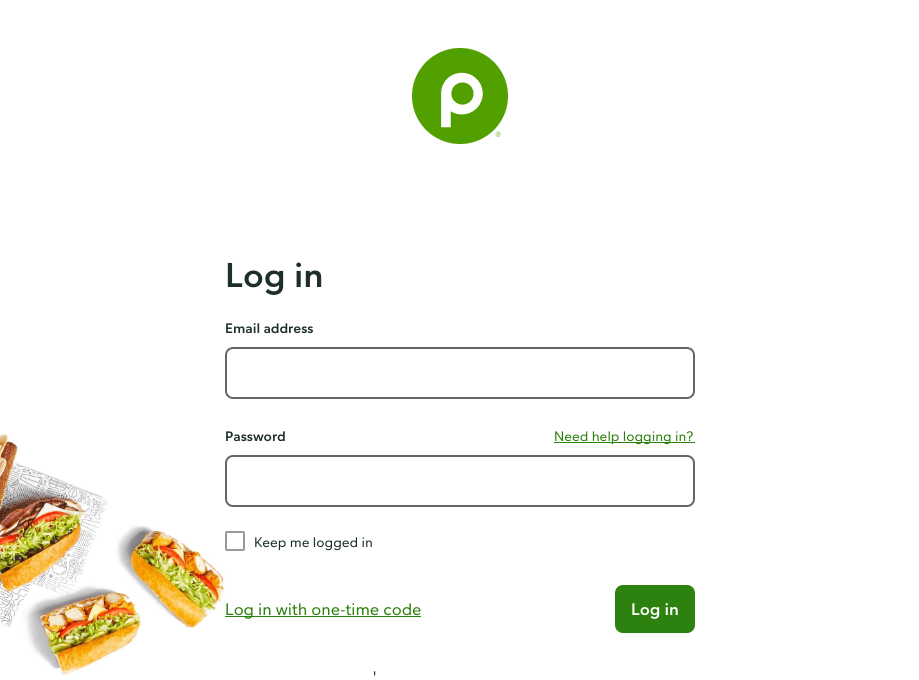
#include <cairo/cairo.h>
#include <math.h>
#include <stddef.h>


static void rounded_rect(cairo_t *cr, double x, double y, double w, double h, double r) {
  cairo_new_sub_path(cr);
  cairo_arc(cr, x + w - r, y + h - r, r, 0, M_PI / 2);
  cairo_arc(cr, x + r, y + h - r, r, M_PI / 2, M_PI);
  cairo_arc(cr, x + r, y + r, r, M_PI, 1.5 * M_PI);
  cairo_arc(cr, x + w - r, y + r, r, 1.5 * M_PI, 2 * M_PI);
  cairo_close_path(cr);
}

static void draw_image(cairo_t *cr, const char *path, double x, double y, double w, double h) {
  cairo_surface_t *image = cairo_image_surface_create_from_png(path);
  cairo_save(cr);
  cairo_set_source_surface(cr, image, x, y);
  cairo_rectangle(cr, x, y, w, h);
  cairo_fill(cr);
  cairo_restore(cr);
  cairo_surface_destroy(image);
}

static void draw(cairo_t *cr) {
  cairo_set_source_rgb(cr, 1, 1, 1);
  cairo_paint(cr);
  draw_image(cr, "images/1.png", 0, 434, 225, 242);
  draw_image(cr, "images/2.png", 412, 48, 96, 96);
  rounded_rect(cr, 226, 348, 468, 50, 7);
  cairo_set_source_rgb(cr, 102 / 255.0, 102 / 255.0, 102 / 255.0);
  cairo_stroke(cr);
  cairo_set_source_rgb(cr, 45 / 255.0, 129 / 255.0, 14 / 255.0);
  cairo_rectangle(cr, 554, 442, 141, 1);
  cairo_fill(cr);
  rounded_rect(cr, 226, 456, 468, 50, 7);
  cairo_set_source_rgb(cr, 102 / 255.0, 102 / 255.0, 102 / 255.0);
  cairo_stroke(cr);
  rounded_rect(cr, 226, 532, 18, 18, 1);
  cairo_set_source_rgb(cr, 153 / 255.0, 153 / 255.0, 153 / 255.0);
  cairo_stroke(cr);
  cairo_set_source_rgb(cr, 45 / 255.0, 129 / 255.0, 14 / 255.0);
  cairo_rectangle(cr, 225, 616, 196, 1);
  cairo_fill(cr);
  rounded_rect(cr, 615, 585, 80, 48, 8);
  cairo_fill(cr);
  cairo_select_font_face(cr, "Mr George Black", CAIRO_FONT_SLANT_NORMAL, CAIRO_FONT_WEIGHT_NORMAL);
  cairo_set_font_size(cr, 33);
  cairo_set_source_rgb(cr, 29 / 255.0, 47 / 255.0, 40 / 255.0);
  cairo_move_to(cr, 225, 287);
  cairo_show_text(cr, "Log in");
  cairo_set_font_size(cr, 13.25);
  cairo_move_to(cr, 225, 333);
  cairo_show_text(cr, "Email address");
  cairo_move_to(cr, 225, 441);
  cairo_show_text(cr, "Password");
  cairo_select_font_face(cr, "Mr George", CAIRO_FONT_SLANT_NORMAL, CAIRO_FONT_WEIGHT_NORMAL);
  cairo_set_source_rgb(cr, 45 / 255.0, 129 / 255.0, 14 / 255.0);
  cairo_move_to(cr, 554, 441);
  cairo_show_text(cr, "Need help logging in?");
  cairo_set_source_rgb(cr, 29 / 255.0, 47 / 255.0, 40 / 255.0);
  cairo_move_to(cr, 254, 547);
  cairo_show_text(cr, "Keep me logged in");
  cairo_set_font_size(cr, 16);
  cairo_set_source_rgb(cr, 45 / 255.0, 129 / 255.0, 14 / 255.0);
  cairo_move_to(cr, 225, 615);
  cairo_show_text(cr, "Log in with one-time code");
  cairo_select_font_face(cr, "Mr George Black", CAIRO_FONT_SLANT_NORMAL, CAIRO_FONT_WEIGHT_NORMAL);
  cairo_set_source_rgb(cr, 1, 1, 1);
  cairo_move_to(cr, 631, 615);
  cairo_show_text(cr, "Log in");
  cairo_select_font_face(cr, "Mr George", CAIRO_FONT_SLANT_NORMAL, CAIRO_FONT_WEIGHT_NORMAL);
  cairo_set_source_rgb(cr, 29 / 255.0, 47 / 255.0, 40 / 255.0);
  cairo_move_to(cr, 373, 683);
  cairo_show_text(cr, "'");
}

int main(void) {
  cairo_surface_t *surface = cairo_image_surface_create(CAIRO_FORMAT_RGB24, 919, 680);
  cairo_t *cr = cairo_create(surface);
  cairo_font_options_t *options = cairo_font_options_create();
  cairo_font_options_set_hint_metrics(options, CAIRO_HINT_METRICS_OFF);
  cairo_font_options_set_hint_style(options, CAIRO_HINT_STYLE_NONE);
  cairo_set_font_options(cr, options);
  cairo_set_miter_limit(cr, 4);
  draw(cr);
  cairo_surface_write_to_png(surface, "out.png");
  cairo_font_options_destroy(options);
  cairo_destroy(cr);
  cairo_surface_destroy(surface);
  return 0;
}
